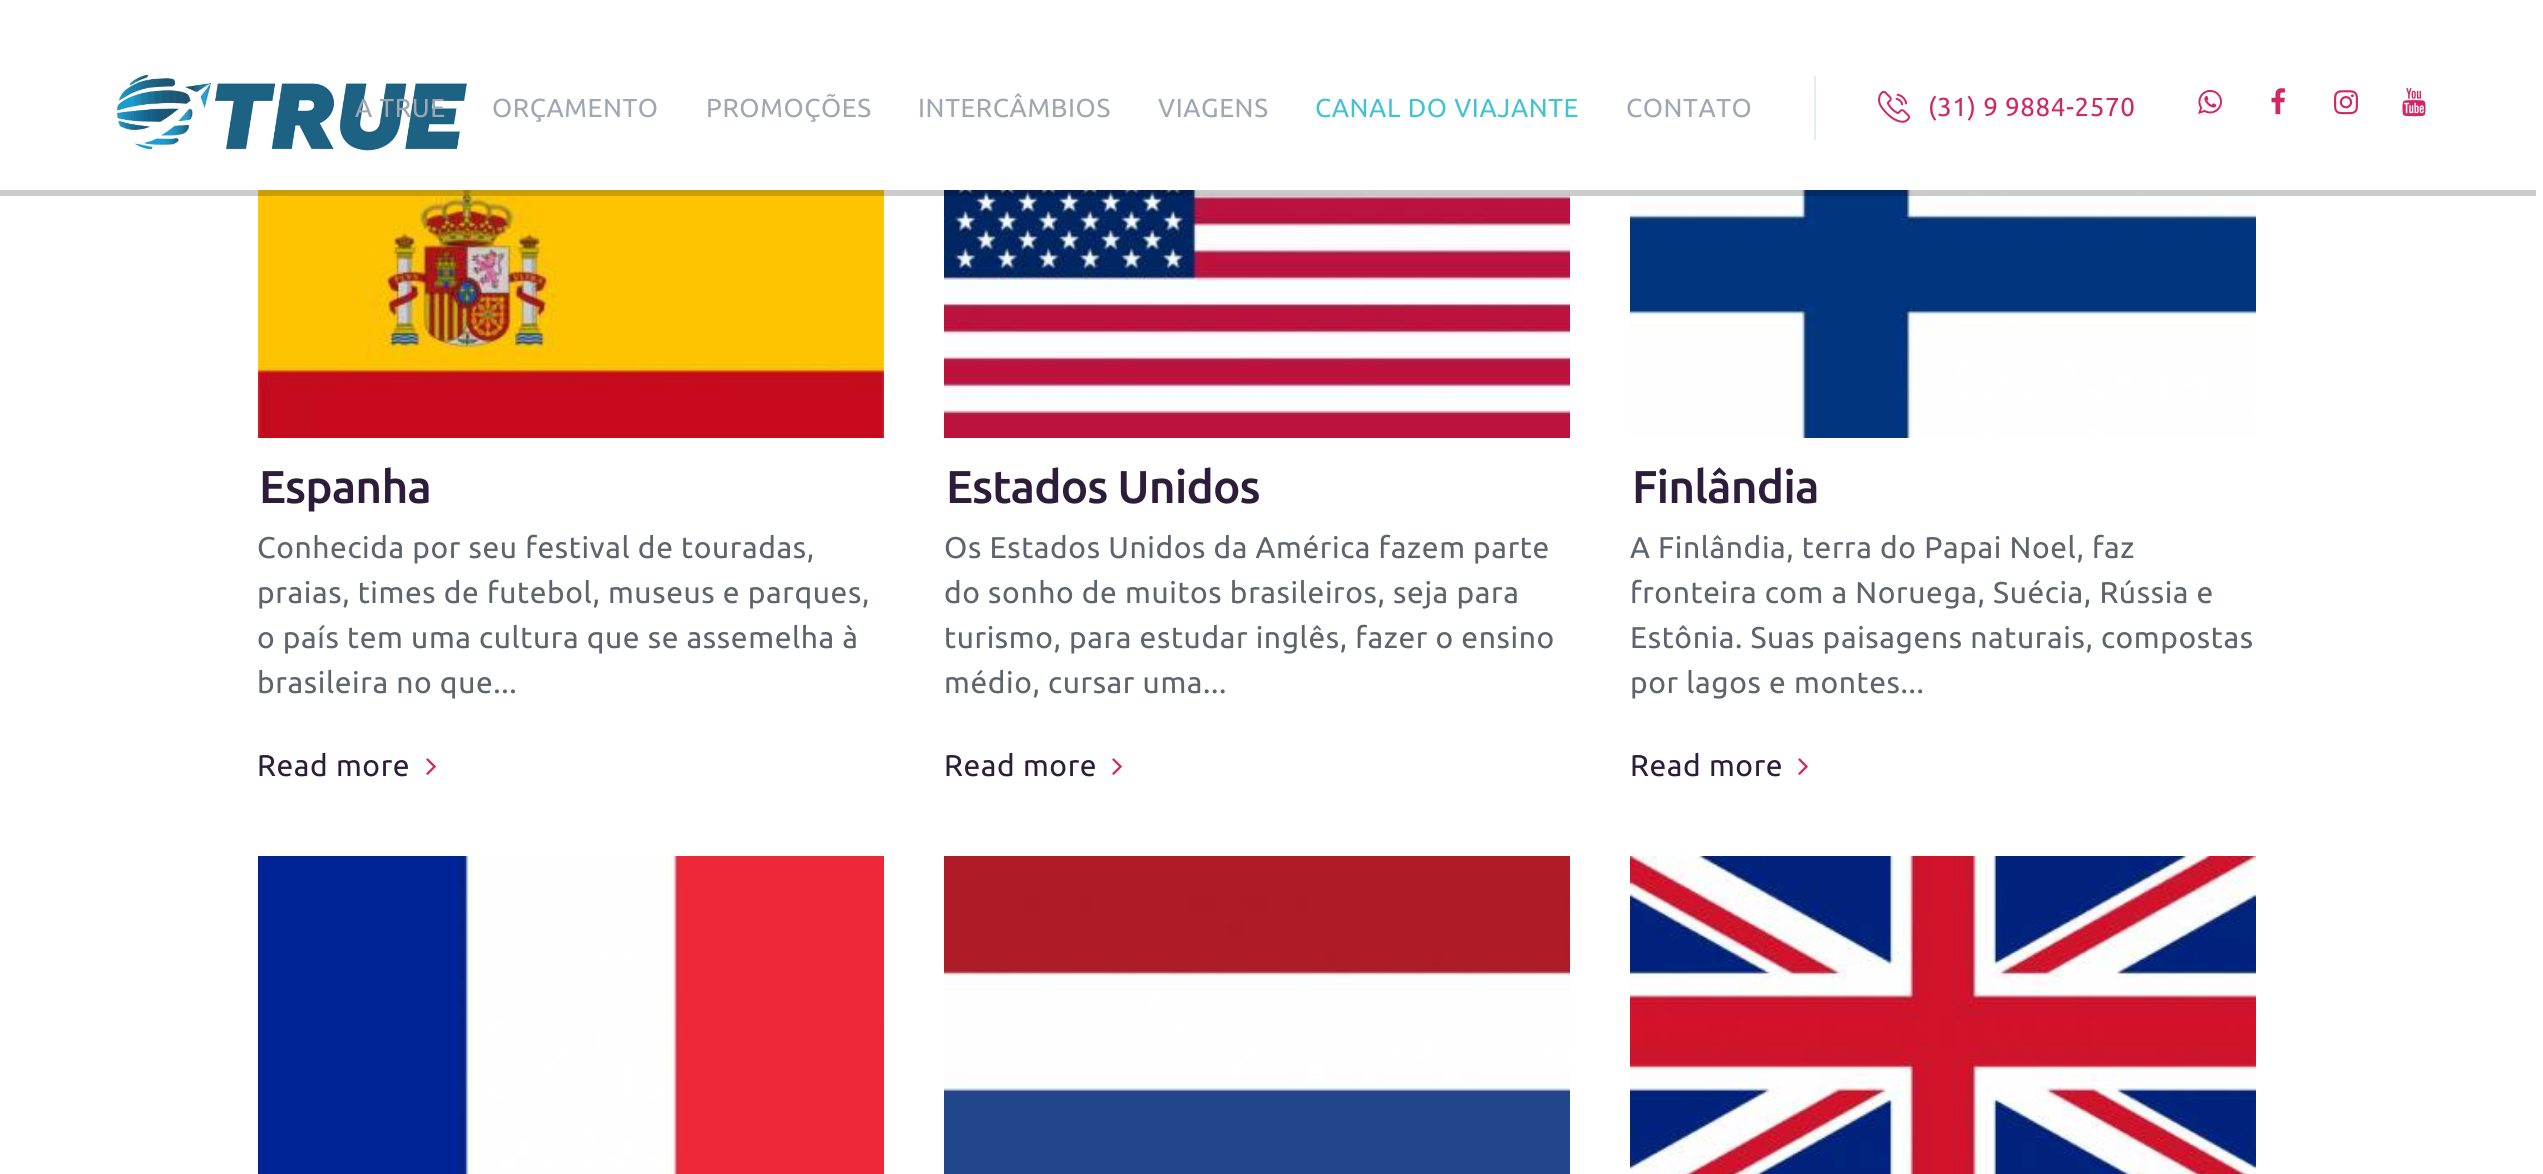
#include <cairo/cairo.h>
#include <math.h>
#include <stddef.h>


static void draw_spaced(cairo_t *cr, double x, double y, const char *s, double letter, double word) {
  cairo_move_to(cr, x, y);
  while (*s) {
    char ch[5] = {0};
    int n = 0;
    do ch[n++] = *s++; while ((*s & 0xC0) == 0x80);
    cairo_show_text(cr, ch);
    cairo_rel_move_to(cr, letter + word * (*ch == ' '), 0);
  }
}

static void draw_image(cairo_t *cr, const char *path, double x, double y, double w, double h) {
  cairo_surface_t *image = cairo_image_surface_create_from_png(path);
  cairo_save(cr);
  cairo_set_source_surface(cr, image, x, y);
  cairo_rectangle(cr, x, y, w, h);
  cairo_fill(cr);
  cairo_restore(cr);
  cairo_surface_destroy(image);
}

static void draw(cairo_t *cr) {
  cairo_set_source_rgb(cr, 1, 1, 1);
  cairo_paint(cr);
  draw_image(cr, "images/7.png", 258, 190, 626, 248);
  draw_image(cr, "images/9.png", 944, 190, 626, 248);
  draw_image(cr, "images/10.png", 1630, 190, 626, 248);
  cairo_set_source_rgba(cr, 0, 0, 0, 0.2);
  cairo_new_path(cr);
  cairo_move_to(cr, -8, 6);
  cairo_line_to(cr, -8, 196);
  cairo_line_to(cr, 2536, 196);
  cairo_line_to(cr, 2536, 190);
  cairo_line_to(cr, 0, 190);
  cairo_line_to(cr, 0, 6);
  cairo_close_path(cr);
  cairo_fill(cr);
  draw_image(cr, "images/1.png", 115, 74, 353, 77);
  cairo_set_source_rgb(cr, 229 / 255.0, 236 / 255.0, 241 / 255.0);
  cairo_rectangle(cr, 1814, 76, 2, 64);
  cairo_fill(cr);
  draw_image(cr, "images/2.png", 1878, 90, 32, 33);
  draw_image(cr, "images/3.png", 2198, 89, 24, 25);
  draw_image(cr, "images/4.png", 2271, 88, 14, 27);
  draw_image(cr, "images/5.png", 2334, 90, 24, 25);
  draw_image(cr, "images/6.png", 2402, 88, 24, 29);
  draw_image(cr, "images/8.png", 426, 758, 10, 17);
  draw_image(cr, "images/8.png", 1112, 758, 10, 17);
  draw_image(cr, "images/8.png", 1798, 758, 10, 17);
  draw_image(cr, "images/11.png", 258, 856, 626, 318);
  draw_image(cr, "images/12.png", 944, 856, 626, 318);
  draw_image(cr, "images/13.png", 1630, 856, 626, 318);
  cairo_select_font_face(cr, "Ubuntu", CAIRO_FONT_SLANT_NORMAL, CAIRO_FONT_WEIGHT_NORMAL);
  cairo_set_font_size(cr, 26);
  cairo_set_source_rgb(cr, 160 / 255.0, 166 / 255.0, 178 / 255.0);
  draw_spaced(cr, 355, 117, "A TRUE", 0.6, 0);
  draw_spaced(cr, 492, 117, "ORÇAMENTO", 0.6, 0);
  draw_spaced(cr, 706, 117, "PROMOÇÕES", 0.6, 0);
  draw_spaced(cr, 918, 117, "INTERCÂMBIOS", 0.6, 0);
  draw_spaced(cr, 1158, 117, "VIAGENS", 0.6, 0);
  cairo_set_source_rgb(cr, 66 / 255.0, 195 / 255.0, 211 / 255.0);
  draw_spaced(cr, 1315, 117, "CANAL DO VIAJANTE", 0.6, 0);
  cairo_set_source_rgb(cr, 160 / 255.0, 166 / 255.0, 178 / 255.0);
  draw_spaced(cr, 1626, 117, "CONTATO", 0.6, 0);
  cairo_set_source_rgb(cr, 209 / 255.0, 39 / 255.0, 100 / 255.0);
  draw_spaced(cr, 1928, 116, "(31) 9 9884-2570", 0.6, 0);
  cairo_select_font_face(cr, "Ubuntu Medium", CAIRO_FONT_SLANT_NORMAL, CAIRO_FONT_WEIGHT_NORMAL);
  cairo_set_font_size(cr, 46);
  cairo_set_source_rgb(cr, 45 / 255.0, 29 / 255.0, 59 / 255.0);
  draw_spaced(cr, 259, 503, "Espanha", -0.9, 0);
  cairo_select_font_face(cr, "Ubuntu", CAIRO_FONT_SLANT_NORMAL, CAIRO_FONT_WEIGHT_NORMAL);
  cairo_set_font_size(cr, 30);
  cairo_set_source_rgb(cr, 94 / 255.0, 100 / 255.0, 109 / 255.0);
  draw_spaced(cr, 257, 558, "Conhecida por seu festival de touradas,", 0.6, 0);
  draw_spaced(cr, 257, 603, "praias, times de futebol, museus e parques,", 0.6, 0);
  draw_spaced(cr, 257, 648, "o país tem uma cultura que se assemelha à", 0.6, 0);
  draw_spaced(cr, 257, 693, "brasileira no que...", 0.6, 0);
  cairo_set_source_rgb(cr, 45 / 255.0, 29 / 255.0, 59 / 255.0);
  draw_spaced(cr, 257, 776, "Read more", 0.6, 0);
  cairo_select_font_face(cr, "Ubuntu Medium", CAIRO_FONT_SLANT_NORMAL, CAIRO_FONT_WEIGHT_NORMAL);
  cairo_set_font_size(cr, 46);
  draw_spaced(cr, 946, 503, "Estados Unidos", -0.9, 0);
  cairo_select_font_face(cr, "Ubuntu", CAIRO_FONT_SLANT_NORMAL, CAIRO_FONT_WEIGHT_NORMAL);
  cairo_set_font_size(cr, 30);
  cairo_set_source_rgb(cr, 94 / 255.0, 100 / 255.0, 109 / 255.0);
  draw_spaced(cr, 944, 558, "Os Estados Unidos da América fazem parte", 0.6, 0);
  draw_spaced(cr, 944, 603, "do sonho de muitos brasileiros, seja para", 0.6, 0);
  draw_spaced(cr, 944, 648, "turismo, para estudar inglês, fazer o ensino", 0.6, 0);
  draw_spaced(cr, 944, 693, "médio, cursar uma...", 0.6, 0);
  cairo_set_source_rgb(cr, 45 / 255.0, 29 / 255.0, 59 / 255.0);
  draw_spaced(cr, 944, 776, "Read more", 0.6, 0);
  cairo_select_font_face(cr, "Ubuntu Medium", CAIRO_FONT_SLANT_NORMAL, CAIRO_FONT_WEIGHT_NORMAL);
  cairo_set_font_size(cr, 46);
  draw_spaced(cr, 1632, 503, "Finlândia", -0.9, 0);
  cairo_select_font_face(cr, "Ubuntu", CAIRO_FONT_SLANT_NORMAL, CAIRO_FONT_WEIGHT_NORMAL);
  cairo_set_font_size(cr, 30);
  cairo_set_source_rgb(cr, 94 / 255.0, 100 / 255.0, 109 / 255.0);
  draw_spaced(cr, 1630, 558, "A Finlândia, terra do Papai Noel, faz", 0.6, 0);
  draw_spaced(cr, 1630, 603, "fronteira com a Noruega, Suécia, Rússia e", 0.6, 0);
  draw_spaced(cr, 1630, 648, "Estônia. Suas paisagens naturais, compostas", 0.6, 0);
  draw_spaced(cr, 1630, 693, "por lagos e montes...", 0.6, 0);
  cairo_set_source_rgb(cr, 45 / 255.0, 29 / 255.0, 59 / 255.0);
  draw_spaced(cr, 1630, 776, "Read more", 0.6, 0);
}

int main(void) {
  cairo_surface_t *surface = cairo_image_surface_create(CAIRO_FORMAT_RGB24, 2543, 1174);
  cairo_t *cr = cairo_create(surface);
  cairo_font_options_t *options = cairo_font_options_create();
  cairo_font_options_set_hint_metrics(options, CAIRO_HINT_METRICS_OFF);
  cairo_font_options_set_hint_style(options, CAIRO_HINT_STYLE_NONE);
  cairo_set_font_options(cr, options);
  cairo_set_miter_limit(cr, 4);
  draw(cr);
  cairo_surface_write_to_png(surface, "out.png");
  cairo_font_options_destroy(options);
  cairo_destroy(cr);
  cairo_surface_destroy(surface);
  return 0;
}
